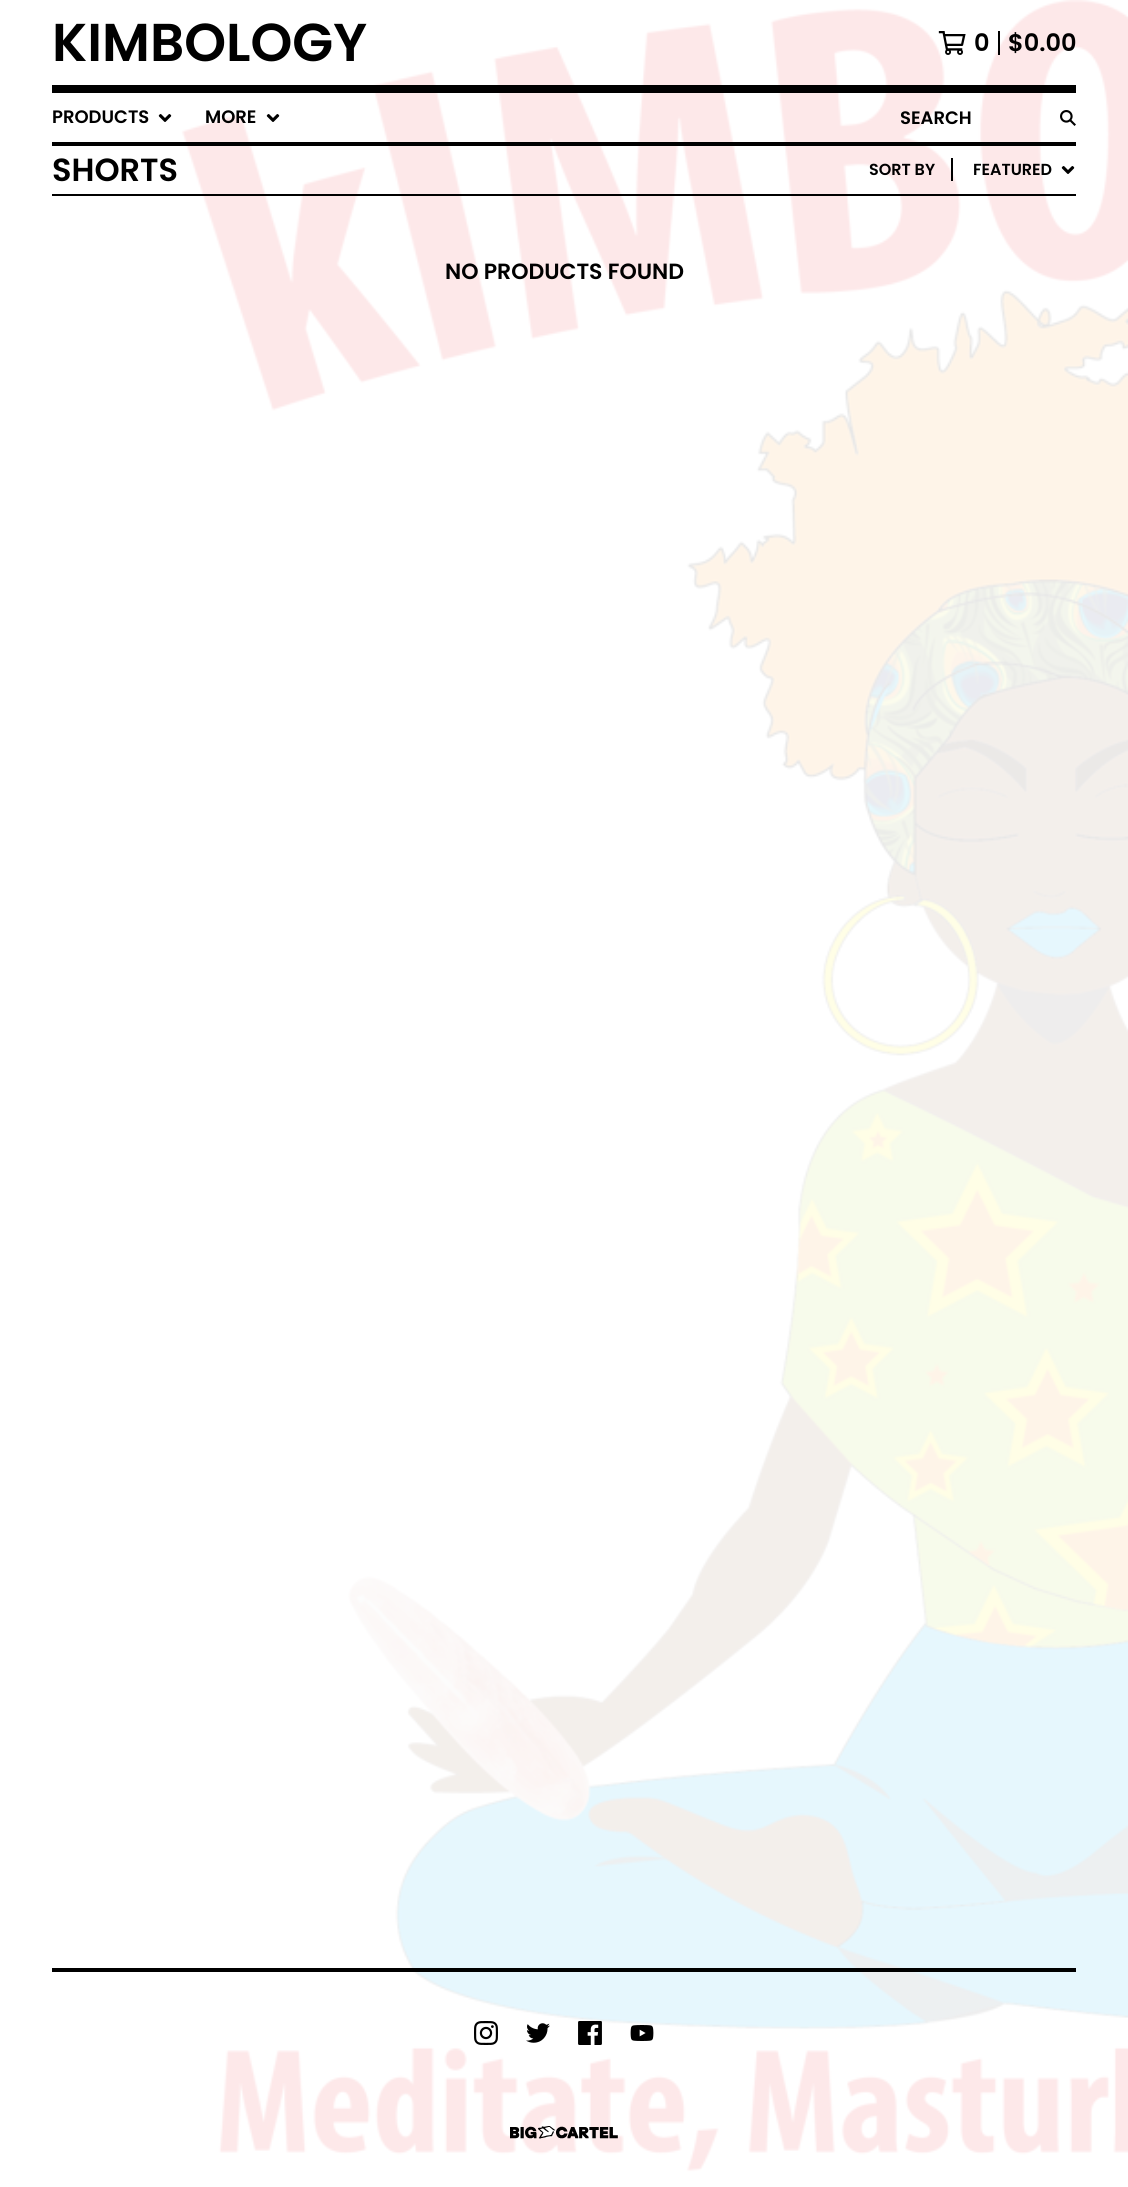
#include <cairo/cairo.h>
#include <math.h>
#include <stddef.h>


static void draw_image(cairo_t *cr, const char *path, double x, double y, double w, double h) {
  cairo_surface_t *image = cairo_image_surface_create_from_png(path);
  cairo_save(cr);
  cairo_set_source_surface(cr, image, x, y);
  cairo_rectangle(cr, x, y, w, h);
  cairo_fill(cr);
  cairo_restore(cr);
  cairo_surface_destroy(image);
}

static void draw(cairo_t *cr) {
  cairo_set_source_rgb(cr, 1, 1, 1);
  cairo_paint(cr);
  draw_image(cr, "images/1.png", 181, 0, 947, 2172);
  cairo_set_source_rgb(cr, 0, 0, 0);
  cairo_rectangle(cr, 52, 85, 1024, 8);
  cairo_fill(cr);
  draw_image(cr, "images/2.png", 938, 31, 28, 24);
  cairo_rectangle(cr, 998, 31, 2, 24);
  cairo_fill(cr);
  cairo_rectangle(cr, 52, 142, 1024, 4);
  cairo_fill(cr);
  draw_image(cr, "images/3.png", 158, 114, 14, 8);
  draw_image(cr, "images/3.png", 266, 114, 14, 8);
  draw_image(cr, "images/4.png", 1060, 110, 16, 16);
  cairo_rectangle(cr, 52, 194, 1024, 2);
  cairo_fill(cr);
  cairo_rectangle(cr, 951, 158, 2, 23);
  cairo_fill(cr);
  draw_image(cr, "images/3.png", 1061, 166, 14, 8);
  cairo_rectangle(cr, 52, 1968, 1024, 4);
  cairo_fill(cr);
  draw_image(cr, "images/5.png", 474, 2021, 24, 24);
  draw_image(cr, "images/6.png", 526, 2023, 24, 20);
  draw_image(cr, "images/7.png", 578, 2021, 24, 24);
  draw_image(cr, "images/8.png", 630, 2025, 24, 16);
  draw_image(cr, "images/9.png", 510, 2126, 108, 13);
  cairo_select_font_face(cr, "Poppins SemiBold", CAIRO_FONT_SLANT_NORMAL, CAIRO_FONT_WEIGHT_NORMAL);
  cairo_set_font_size(cr, 53.25);
  cairo_move_to(cr, 52, 61);
  cairo_show_text(cr, "KIMBOLOGY");
  cairo_set_font_size(cr, 24);
  cairo_move_to(cr, 974, 51);
  cairo_show_text(cr, "0");
  cairo_move_to(cr, 1008, 51);
  cairo_show_text(cr, "$0.00");
  cairo_set_font_size(cr, 18);
  cairo_move_to(cr, 52, 123);
  cairo_show_text(cr, "PRODUCTS");
  cairo_move_to(cr, 205, 123);
  cairo_show_text(cr, "MORE");
  cairo_move_to(cr, 900, 124);
  cairo_show_text(cr, "SEARCH");
  cairo_set_font_size(cr, 32);
  cairo_move_to(cr, 52, 181);
  cairo_show_text(cr, "SHORTS");
  cairo_set_font_size(cr, 16);
  cairo_move_to(cr, 869, 175);
  cairo_show_text(cr, "SORT BY");
  cairo_move_to(cr, 973, 175);
  cairo_show_text(cr, "FEATURED");
  cairo_set_font_size(cr, 22);
  cairo_move_to(cr, 445, 279);
  cairo_show_text(cr, "NO PRODUCTS FOUND");
}

int main(void) {
  cairo_surface_t *surface = cairo_image_surface_create(CAIRO_FORMAT_RGB24, 1128, 2187);
  cairo_t *cr = cairo_create(surface);
  cairo_font_options_t *options = cairo_font_options_create();
  cairo_font_options_set_hint_metrics(options, CAIRO_HINT_METRICS_OFF);
  cairo_font_options_set_hint_style(options, CAIRO_HINT_STYLE_NONE);
  cairo_set_font_options(cr, options);
  cairo_set_miter_limit(cr, 4);
  draw(cr);
  cairo_surface_write_to_png(surface, "out.png");
  cairo_font_options_destroy(options);
  cairo_destroy(cr);
  cairo_surface_destroy(surface);
  return 0;
}
